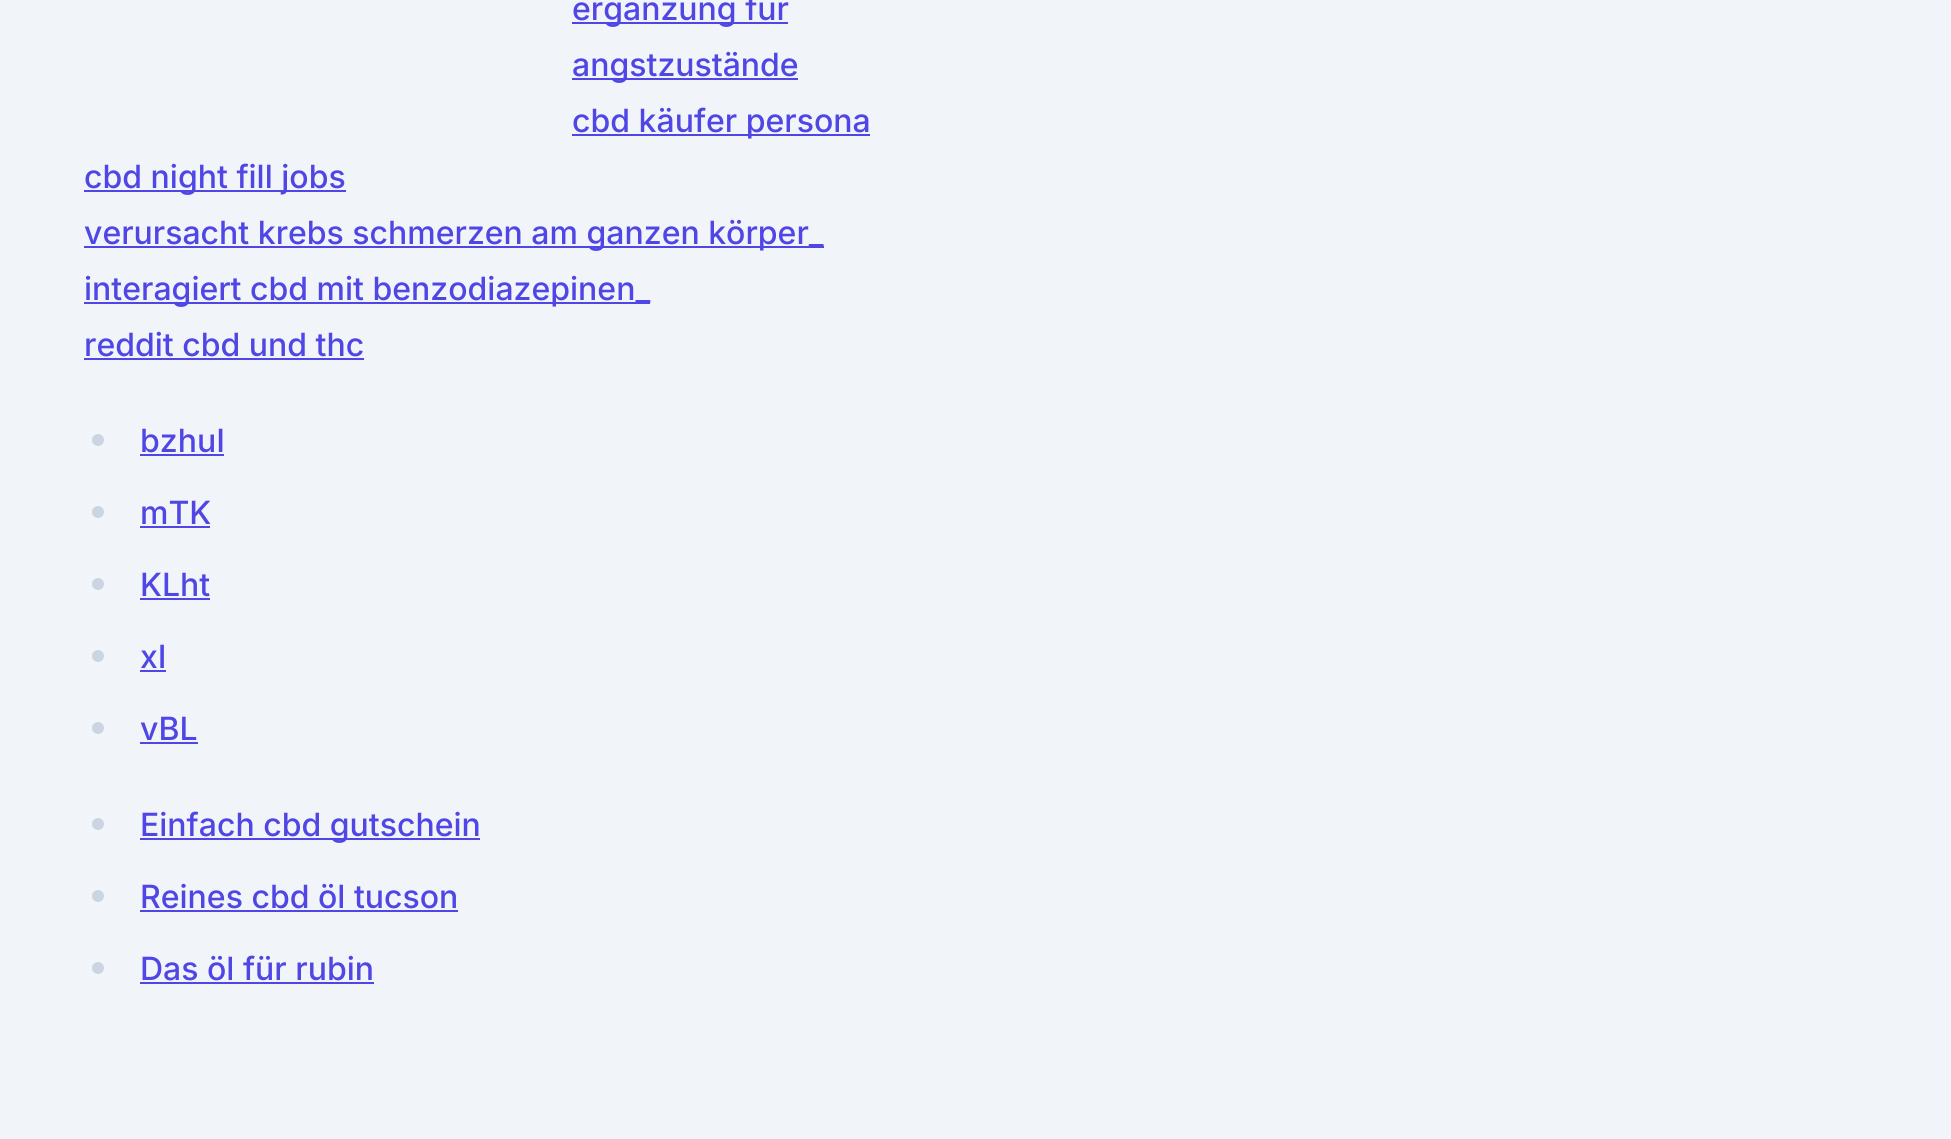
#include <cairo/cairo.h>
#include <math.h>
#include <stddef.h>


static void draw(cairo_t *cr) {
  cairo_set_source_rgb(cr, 241 / 255.0, 245 / 255.0, 249 / 255.0);
  cairo_paint(cr);
  cairo_set_source_rgb(cr, 79 / 255.0, 70 / 255.0, 229 / 255.0);
  cairo_rectangle(cr, 572, 22, 216, 2);
  cairo_fill(cr);
  cairo_rectangle(cr, 572, 78, 226, 2);
  cairo_fill(cr);
  cairo_rectangle(cr, 572, 134, 298, 2);
  cairo_fill(cr);
  cairo_rectangle(cr, 84, 190, 262, 2);
  cairo_fill(cr);
  cairo_rectangle(cr, 84, 246, 740, 2);
  cairo_fill(cr);
  cairo_rectangle(cr, 84, 302, 566, 2);
  cairo_fill(cr);
  cairo_rectangle(cr, 84, 358, 280, 2);
  cairo_fill(cr);
  cairo_set_source_rgb(cr, 203 / 255.0, 213 / 255.0, 225 / 255.0);
  cairo_arc(cr, 98, 440, 6, 0, 2 * M_PI);
  cairo_fill(cr);
  cairo_set_source_rgb(cr, 79 / 255.0, 70 / 255.0, 229 / 255.0);
  cairo_rectangle(cr, 140, 454, 84, 2);
  cairo_fill(cr);
  cairo_set_source_rgb(cr, 203 / 255.0, 213 / 255.0, 225 / 255.0);
  cairo_arc(cr, 98, 512, 6, 0, 2 * M_PI);
  cairo_fill(cr);
  cairo_set_source_rgb(cr, 79 / 255.0, 70 / 255.0, 229 / 255.0);
  cairo_rectangle(cr, 140, 526, 70, 2);
  cairo_fill(cr);
  cairo_set_source_rgb(cr, 203 / 255.0, 213 / 255.0, 225 / 255.0);
  cairo_arc(cr, 98, 584, 6, 0, 2 * M_PI);
  cairo_fill(cr);
  cairo_set_source_rgb(cr, 79 / 255.0, 70 / 255.0, 229 / 255.0);
  cairo_rectangle(cr, 140, 598, 70, 2);
  cairo_fill(cr);
  cairo_set_source_rgb(cr, 203 / 255.0, 213 / 255.0, 225 / 255.0);
  cairo_arc(cr, 98, 656, 6, 0, 2 * M_PI);
  cairo_fill(cr);
  cairo_set_source_rgb(cr, 79 / 255.0, 70 / 255.0, 229 / 255.0);
  cairo_rectangle(cr, 140, 670, 26, 2);
  cairo_fill(cr);
  cairo_set_source_rgb(cr, 203 / 255.0, 213 / 255.0, 225 / 255.0);
  cairo_arc(cr, 98, 728, 6, 0, 2 * M_PI);
  cairo_fill(cr);
  cairo_set_source_rgb(cr, 79 / 255.0, 70 / 255.0, 229 / 255.0);
  cairo_rectangle(cr, 140, 742, 58, 2);
  cairo_fill(cr);
  cairo_set_source_rgb(cr, 203 / 255.0, 213 / 255.0, 225 / 255.0);
  cairo_arc(cr, 98, 824, 6, 0, 2 * M_PI);
  cairo_fill(cr);
  cairo_set_source_rgb(cr, 79 / 255.0, 70 / 255.0, 229 / 255.0);
  cairo_rectangle(cr, 140, 838, 340, 2);
  cairo_fill(cr);
  cairo_set_source_rgb(cr, 203 / 255.0, 213 / 255.0, 225 / 255.0);
  cairo_arc(cr, 98, 896, 6, 0, 2 * M_PI);
  cairo_fill(cr);
  cairo_set_source_rgb(cr, 79 / 255.0, 70 / 255.0, 229 / 255.0);
  cairo_rectangle(cr, 140, 910, 318, 2);
  cairo_fill(cr);
  cairo_set_source_rgb(cr, 203 / 255.0, 213 / 255.0, 225 / 255.0);
  cairo_arc(cr, 98, 968, 6, 0, 2 * M_PI);
  cairo_fill(cr);
  cairo_set_source_rgb(cr, 79 / 255.0, 70 / 255.0, 229 / 255.0);
  cairo_rectangle(cr, 140, 982, 234, 2);
  cairo_fill(cr);
  cairo_select_font_face(cr, "Inter Medium", CAIRO_FONT_SLANT_NORMAL, CAIRO_FONT_WEIGHT_NORMAL);
  cairo_set_font_size(cr, 32);
  cairo_move_to(cr, 572, 20);
  cairo_show_text(cr, "ergänzung für");
  cairo_move_to(cr, 572, 76);
  cairo_show_text(cr, "angstzustände");
  cairo_move_to(cr, 572, 132);
  cairo_show_text(cr, "cbd käufer persona");
  cairo_move_to(cr, 84, 188);
  cairo_show_text(cr, "cbd night fill jobs");
  cairo_move_to(cr, 84, 244);
  cairo_show_text(cr, "verursacht krebs schmerzen am ganzen körper_");
  cairo_move_to(cr, 84, 300);
  cairo_show_text(cr, "interagiert cbd mit benzodiazepinen_");
  cairo_move_to(cr, 84, 356);
  cairo_show_text(cr, "reddit cbd und thc");
  cairo_move_to(cr, 140, 452);
  cairo_show_text(cr, "bzhuI");
  cairo_move_to(cr, 140, 524);
  cairo_show_text(cr, "mTK");
  cairo_move_to(cr, 140, 596);
  cairo_show_text(cr, "KLht");
  cairo_move_to(cr, 140, 668);
  cairo_show_text(cr, "xI");
  cairo_move_to(cr, 140, 740);
  cairo_show_text(cr, "vBL");
  cairo_move_to(cr, 140, 836);
  cairo_show_text(cr, "Einfach cbd gutschein");
  cairo_move_to(cr, 140, 908);
  cairo_show_text(cr, "Reines cbd öl tucson");
  cairo_move_to(cr, 140, 980);
  cairo_show_text(cr, "Das öl für rubin");
}

int main(void) {
  cairo_surface_t *surface = cairo_image_surface_create(CAIRO_FORMAT_RGB24, 1951, 1139);
  cairo_t *cr = cairo_create(surface);
  cairo_font_options_t *options = cairo_font_options_create();
  cairo_font_options_set_hint_metrics(options, CAIRO_HINT_METRICS_OFF);
  cairo_font_options_set_hint_style(options, CAIRO_HINT_STYLE_NONE);
  cairo_set_font_options(cr, options);
  cairo_set_miter_limit(cr, 4);
  draw(cr);
  cairo_surface_write_to_png(surface, "out.png");
  cairo_font_options_destroy(options);
  cairo_destroy(cr);
  cairo_surface_destroy(surface);
  return 0;
}
